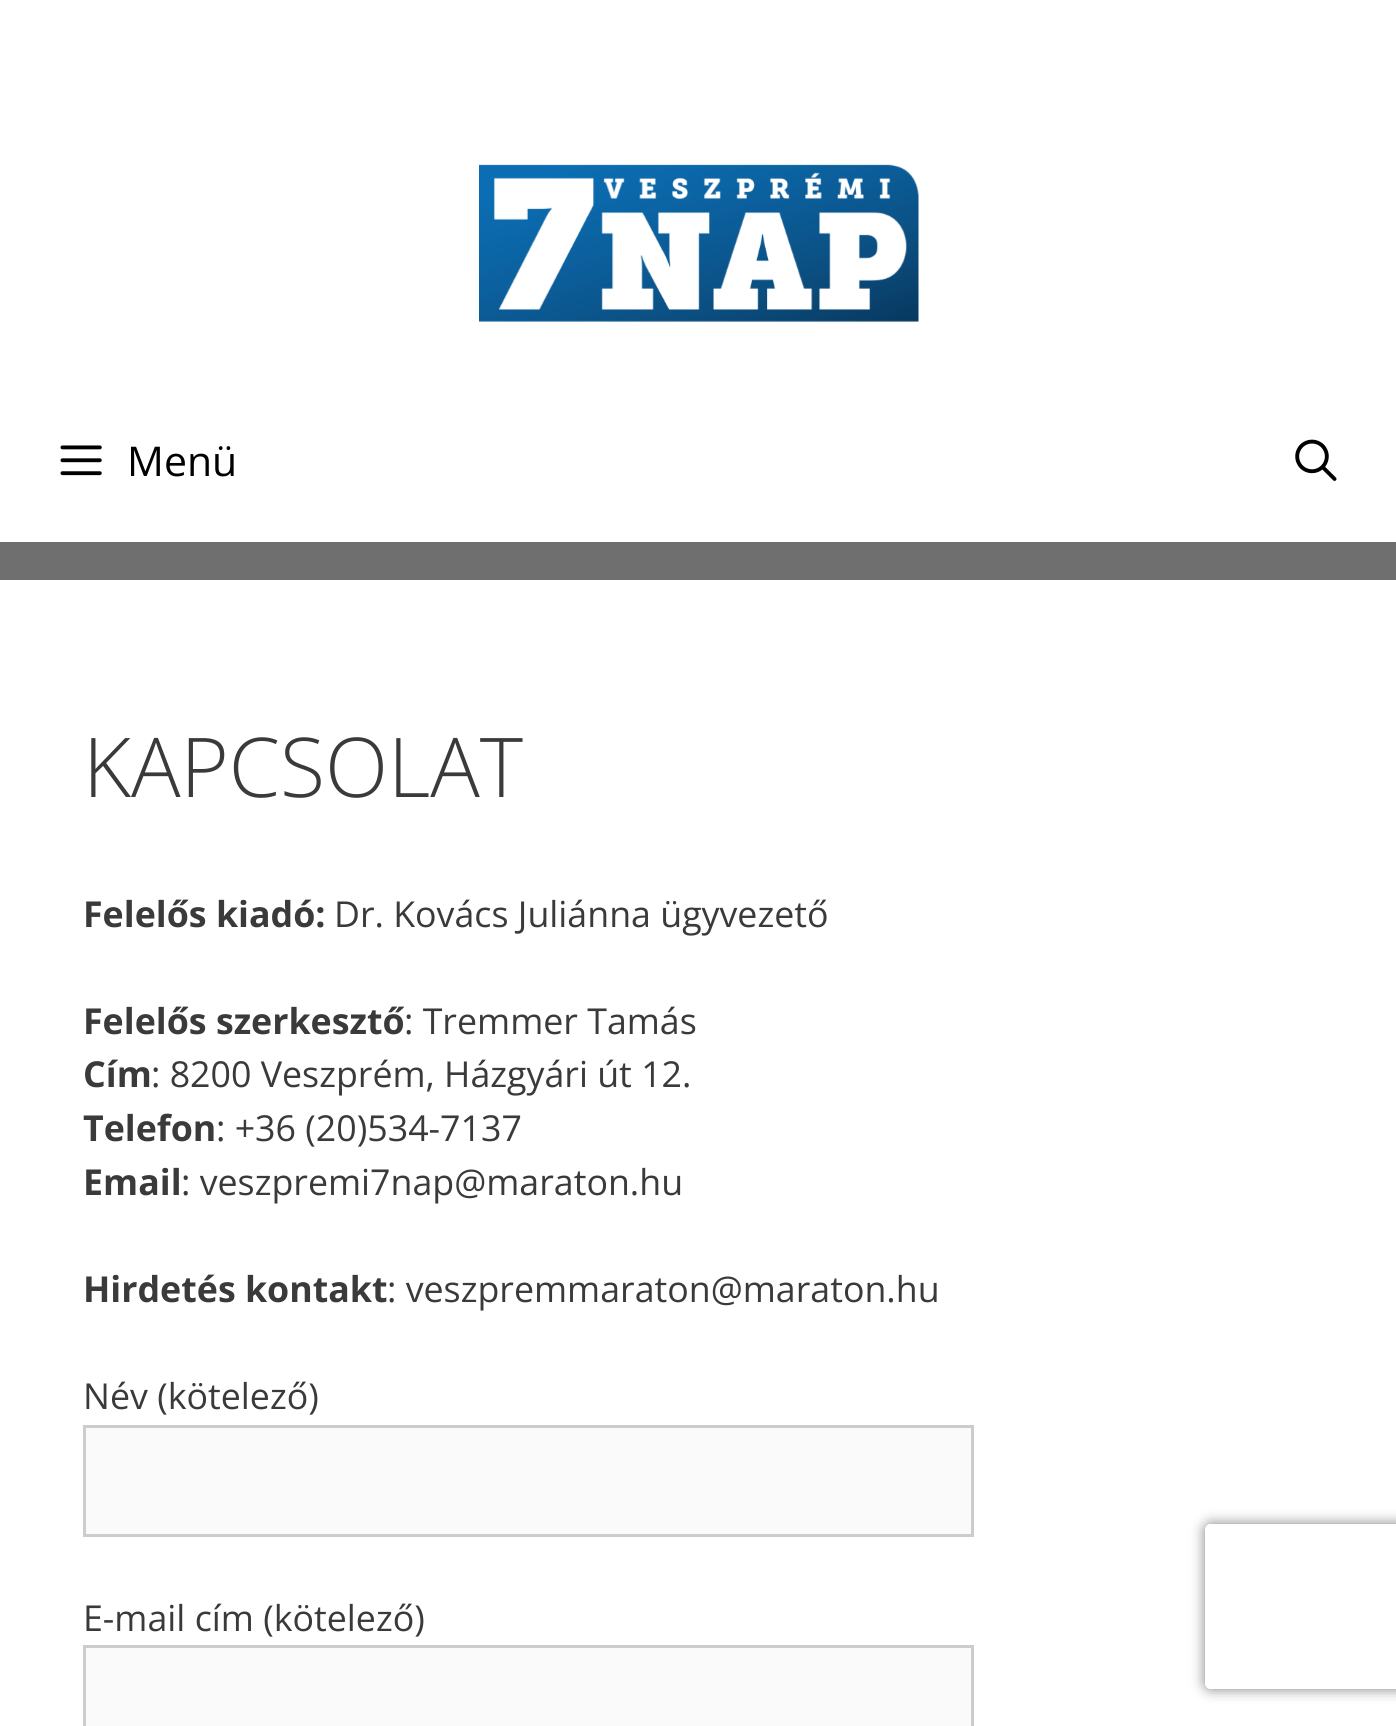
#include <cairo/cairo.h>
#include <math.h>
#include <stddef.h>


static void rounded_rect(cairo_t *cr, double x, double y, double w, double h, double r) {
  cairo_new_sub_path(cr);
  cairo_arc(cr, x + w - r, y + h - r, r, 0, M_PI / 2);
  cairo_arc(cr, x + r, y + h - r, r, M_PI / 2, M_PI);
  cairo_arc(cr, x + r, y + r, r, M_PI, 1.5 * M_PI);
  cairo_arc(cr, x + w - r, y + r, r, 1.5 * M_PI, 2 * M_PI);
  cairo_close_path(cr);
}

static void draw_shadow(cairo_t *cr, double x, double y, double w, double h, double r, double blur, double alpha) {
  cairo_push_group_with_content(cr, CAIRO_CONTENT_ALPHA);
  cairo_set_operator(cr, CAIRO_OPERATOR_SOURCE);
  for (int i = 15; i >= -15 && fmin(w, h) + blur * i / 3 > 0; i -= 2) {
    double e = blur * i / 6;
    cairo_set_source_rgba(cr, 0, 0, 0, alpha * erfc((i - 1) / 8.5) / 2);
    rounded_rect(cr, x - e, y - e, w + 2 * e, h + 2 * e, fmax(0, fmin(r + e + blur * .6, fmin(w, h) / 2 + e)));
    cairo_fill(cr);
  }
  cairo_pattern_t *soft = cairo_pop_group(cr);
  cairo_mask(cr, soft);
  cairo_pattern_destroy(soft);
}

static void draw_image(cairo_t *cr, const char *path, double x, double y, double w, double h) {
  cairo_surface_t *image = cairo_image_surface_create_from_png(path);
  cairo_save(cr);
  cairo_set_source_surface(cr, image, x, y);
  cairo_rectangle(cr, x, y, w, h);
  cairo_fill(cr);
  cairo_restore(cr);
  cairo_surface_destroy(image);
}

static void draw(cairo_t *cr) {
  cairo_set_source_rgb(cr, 1, 1, 1);
  cairo_paint(cr);
  cairo_set_source_rgb(cr, 111 / 255.0, 111 / 255.0, 111 / 255.0);
  cairo_rectangle(cr, 0, 542, 1396, 38);
  cairo_fill(cr);
  draw_image(cr, "images/1.png", 479, 164, 440, 158);
  draw_image(cr, "images/2.png", 60, 445, 42, 31);
  draw_image(cr, "images/3.png", 1295, 439, 42, 42);
  cairo_set_source_rgb(cr, 250 / 255.0, 250 / 255.0, 250 / 255.0);
  cairo_rectangle(cr, 84.5, 1426.5, 888, 109);
  cairo_fill_preserve(cr);
  cairo_set_source_rgb(cr, 204 / 255.0, 204 / 255.0, 204 / 255.0);
  cairo_set_line_width(cr, 3);
  cairo_stroke(cr);
  cairo_set_source_rgb(cr, 250 / 255.0, 250 / 255.0, 250 / 255.0);
  cairo_rectangle(cr, 84.5, 1646.5, 888, 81);
  cairo_fill_preserve(cr);
  cairo_set_source_rgb(cr, 204 / 255.0, 204 / 255.0, 204 / 255.0);
  cairo_stroke(cr);
  cairo_save(cr);
  cairo_set_fill_rule(cr, CAIRO_FILL_RULE_EVEN_ODD);
  cairo_new_path(cr);
  cairo_move_to(cr, 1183, 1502);
  cairo_line_to(cr, 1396, 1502);
  cairo_line_to(cr, 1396, 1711);
  cairo_line_to(cr, 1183, 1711);
  cairo_close_path(cr);
  cairo_move_to(cr, 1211, 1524);
  cairo_line_to(cr, 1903, 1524);
  cairo_curve_to(cr, 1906.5, 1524, 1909, 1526.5, 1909, 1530);
  cairo_line_to(cr, 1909, 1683);
  cairo_curve_to(cr, 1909, 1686.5, 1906.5, 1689, 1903, 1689);
  cairo_line_to(cr, 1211, 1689);
  cairo_curve_to(cr, 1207.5, 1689, 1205, 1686.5, 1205, 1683);
  cairo_line_to(cr, 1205, 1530);
  cairo_curve_to(cr, 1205, 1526.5, 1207.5, 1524, 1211, 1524);
  cairo_close_path(cr);
  cairo_clip(cr);
  cairo_set_source_rgb(cr, 128 / 255.0, 128 / 255.0, 128 / 255.0);
  draw_shadow(cr, 1205, 1524, 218, 165, 6, 7, 1);
  cairo_restore(cr);
  cairo_select_font_face(cr, "Open Sans", CAIRO_FONT_SLANT_NORMAL, CAIRO_FONT_WEIGHT_NORMAL);
  cairo_set_font_size(cr, 41);
  cairo_set_source_rgb(cr, 0, 0, 0);
  cairo_move_to(cr, 127, 476);
  cairo_show_text(cr, "Menü");
  cairo_select_font_face(cr, "Open Sans Light", CAIRO_FONT_SLANT_NORMAL, CAIRO_FONT_WEIGHT_NORMAL);
  cairo_set_font_size(cr, 82.5);
  cairo_set_source_rgb(cr, 58 / 255.0, 58 / 255.0, 58 / 255.0);
  cairo_move_to(cr, 83, 797);
  cairo_show_text(cr, "KAPCSOLAT");
  cairo_select_font_face(cr, "Open Sans", CAIRO_FONT_SLANT_NORMAL, CAIRO_FONT_WEIGHT_BOLD);
  cairo_set_font_size(cr, 35.75);
  cairo_move_to(cr, 83, 927);
  cairo_show_text(cr, "Felelős kiadó:");
  cairo_select_font_face(cr, "Open Sans", CAIRO_FONT_SLANT_NORMAL, CAIRO_FONT_WEIGHT_NORMAL);
  cairo_move_to(cr, 334, 927);
  cairo_show_text(cr, "Dr. Kovács Juliánna ügyvezető");
  cairo_select_font_face(cr, "Open Sans", CAIRO_FONT_SLANT_NORMAL, CAIRO_FONT_WEIGHT_BOLD);
  cairo_move_to(cr, 83, 1034);
  cairo_show_text(cr, "Felelős szerkesztő");
  cairo_select_font_face(cr, "Open Sans", CAIRO_FONT_SLANT_NORMAL, CAIRO_FONT_WEIGHT_NORMAL);
  cairo_move_to(cr, 404, 1034);
  cairo_show_text(cr, ": Tremmer Tamás");
  cairo_select_font_face(cr, "Open Sans", CAIRO_FONT_SLANT_NORMAL, CAIRO_FONT_WEIGHT_BOLD);
  cairo_move_to(cr, 83, 1087);
  cairo_show_text(cr, "Cím");
  cairo_select_font_face(cr, "Open Sans", CAIRO_FONT_SLANT_NORMAL, CAIRO_FONT_WEIGHT_NORMAL);
  cairo_move_to(cr, 151, 1087);
  cairo_show_text(cr, ": 8200 Veszprém, Házgyári út 12.");
  cairo_select_font_face(cr, "Open Sans", CAIRO_FONT_SLANT_NORMAL, CAIRO_FONT_WEIGHT_BOLD);
  cairo_move_to(cr, 83, 1141);
  cairo_show_text(cr, "Telefon");
  cairo_select_font_face(cr, "Open Sans", CAIRO_FONT_SLANT_NORMAL, CAIRO_FONT_WEIGHT_NORMAL);
  cairo_move_to(cr, 216, 1141);
  cairo_show_text(cr, ": +36 (20)534-7137");
  cairo_select_font_face(cr, "Open Sans", CAIRO_FONT_SLANT_NORMAL, CAIRO_FONT_WEIGHT_BOLD);
  cairo_move_to(cr, 83, 1195);
  cairo_show_text(cr, "Email");
  cairo_select_font_face(cr, "Open Sans", CAIRO_FONT_SLANT_NORMAL, CAIRO_FONT_WEIGHT_NORMAL);
  cairo_move_to(cr, 181, 1195);
  cairo_show_text(cr, ": veszpremi7nap@maraton.hu");
  cairo_select_font_face(cr, "Open Sans", CAIRO_FONT_SLANT_NORMAL, CAIRO_FONT_WEIGHT_BOLD);
  cairo_move_to(cr, 83, 1302);
  cairo_show_text(cr, "Hirdetés kontakt");
  cairo_select_font_face(cr, "Open Sans", CAIRO_FONT_SLANT_NORMAL, CAIRO_FONT_WEIGHT_NORMAL);
  cairo_move_to(cr, 387, 1302);
  cairo_show_text(cr, ": veszpremmaraton@maraton.hu");
  cairo_move_to(cr, 83, 1409);
  cairo_show_text(cr, "Név (kötelező)");
  cairo_move_to(cr, 83, 1631);
  cairo_show_text(cr, "E-mail cím (kötelező)");
}

int main(void) {
  cairo_surface_t *surface = cairo_image_surface_create(CAIRO_FORMAT_RGB24, 1396, 1726);
  cairo_t *cr = cairo_create(surface);
  cairo_font_options_t *options = cairo_font_options_create();
  cairo_font_options_set_hint_metrics(options, CAIRO_HINT_METRICS_OFF);
  cairo_font_options_set_hint_style(options, CAIRO_HINT_STYLE_NONE);
  cairo_set_font_options(cr, options);
  cairo_set_miter_limit(cr, 4);
  draw(cr);
  cairo_surface_write_to_png(surface, "out.png");
  cairo_font_options_destroy(options);
  cairo_destroy(cr);
  cairo_surface_destroy(surface);
  return 0;
}
